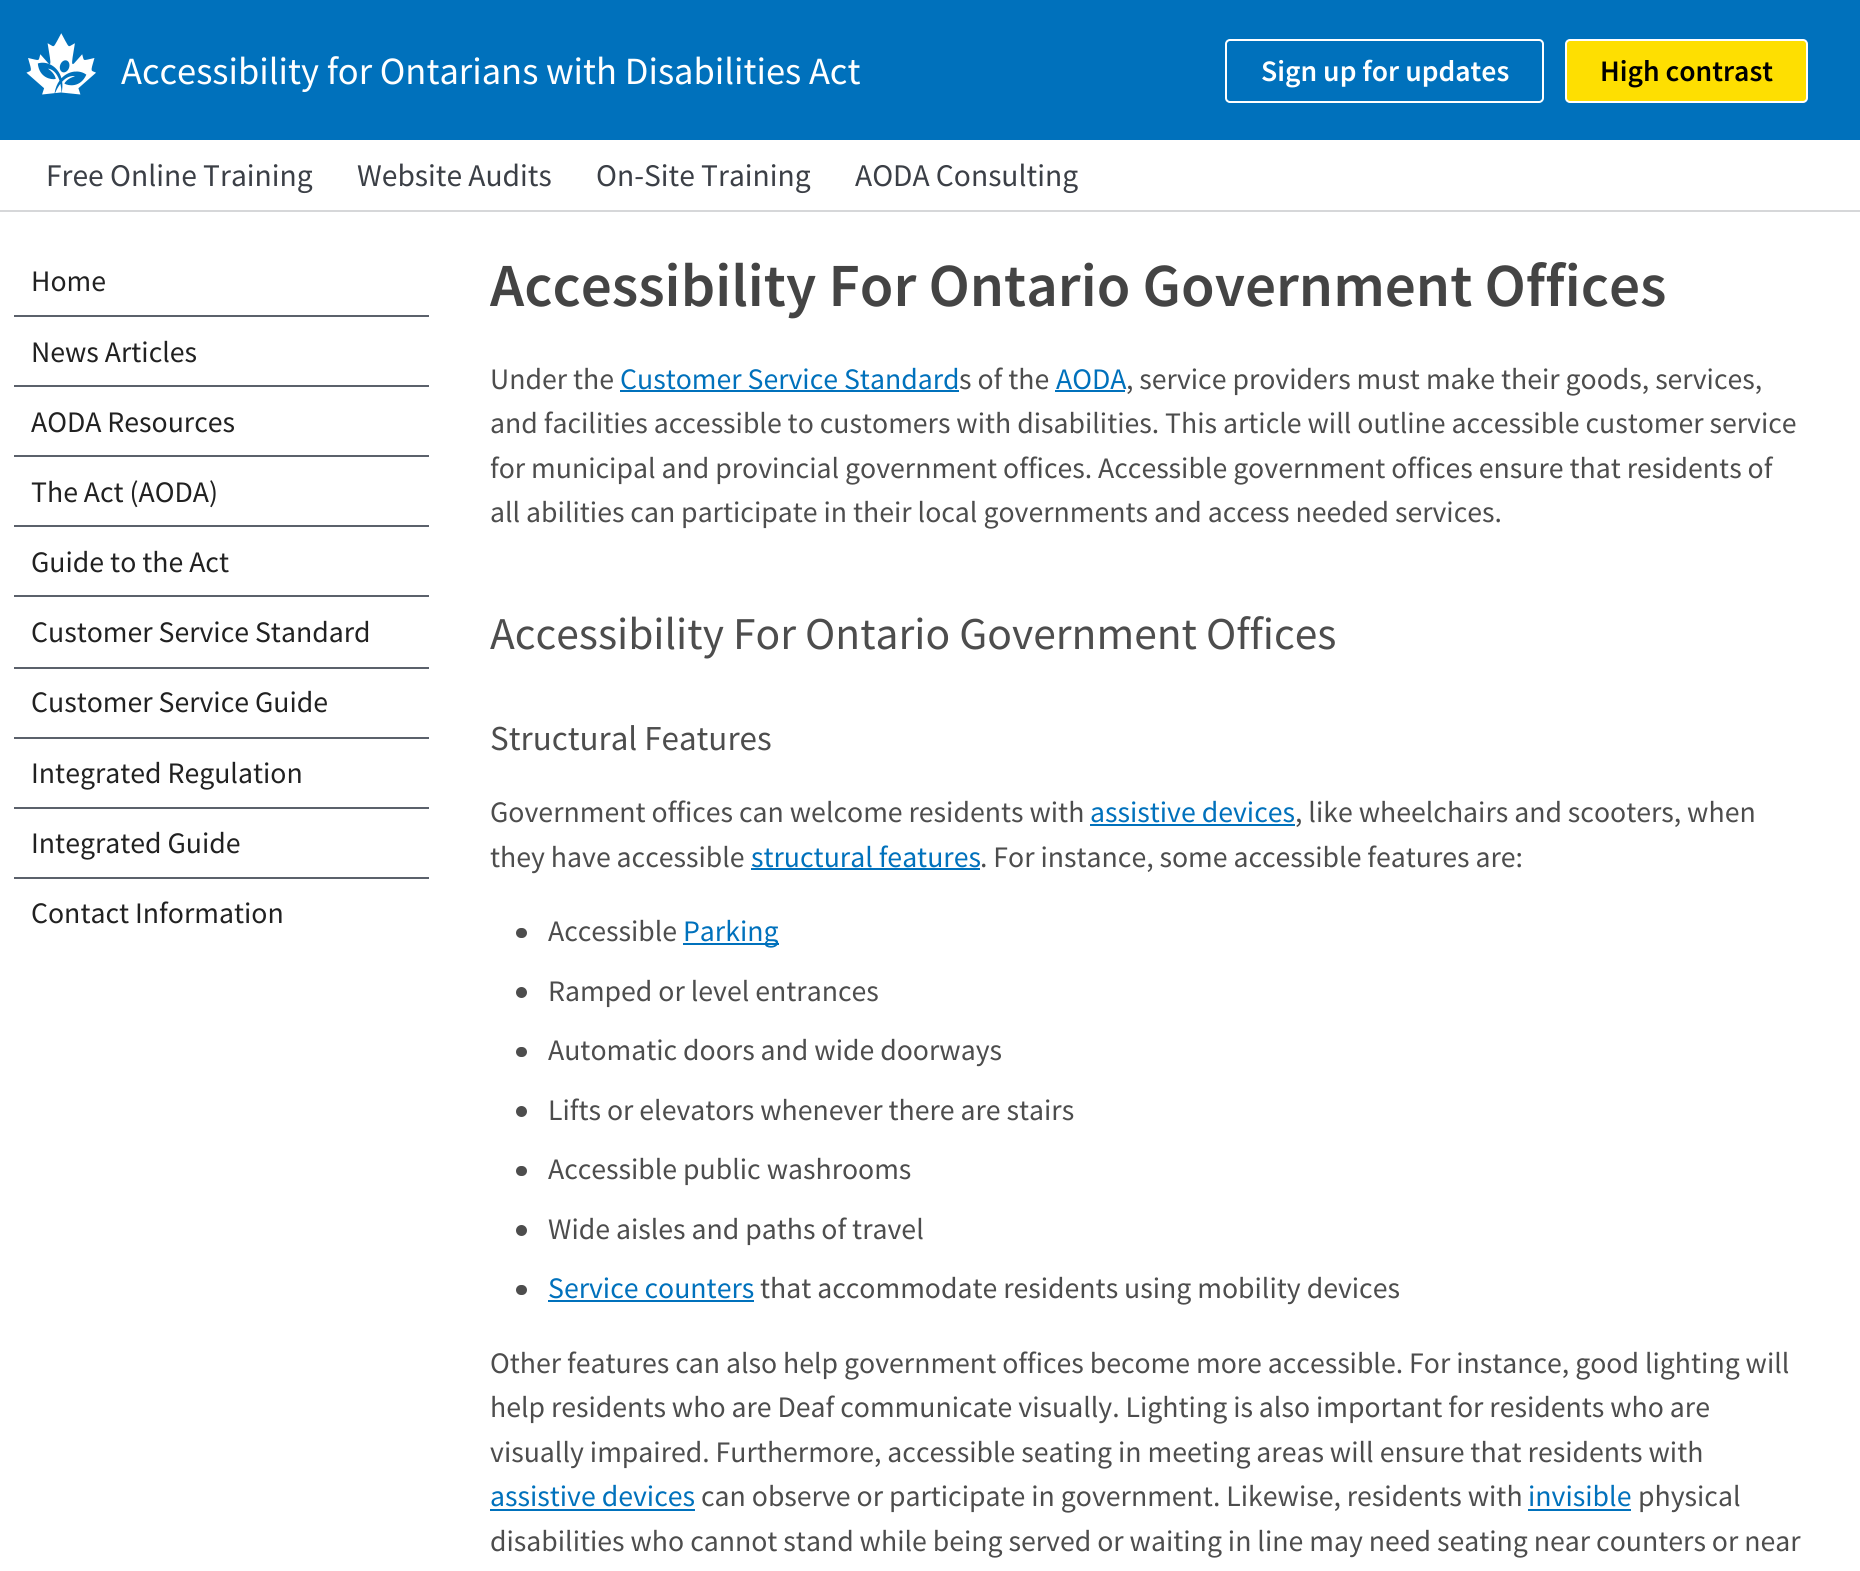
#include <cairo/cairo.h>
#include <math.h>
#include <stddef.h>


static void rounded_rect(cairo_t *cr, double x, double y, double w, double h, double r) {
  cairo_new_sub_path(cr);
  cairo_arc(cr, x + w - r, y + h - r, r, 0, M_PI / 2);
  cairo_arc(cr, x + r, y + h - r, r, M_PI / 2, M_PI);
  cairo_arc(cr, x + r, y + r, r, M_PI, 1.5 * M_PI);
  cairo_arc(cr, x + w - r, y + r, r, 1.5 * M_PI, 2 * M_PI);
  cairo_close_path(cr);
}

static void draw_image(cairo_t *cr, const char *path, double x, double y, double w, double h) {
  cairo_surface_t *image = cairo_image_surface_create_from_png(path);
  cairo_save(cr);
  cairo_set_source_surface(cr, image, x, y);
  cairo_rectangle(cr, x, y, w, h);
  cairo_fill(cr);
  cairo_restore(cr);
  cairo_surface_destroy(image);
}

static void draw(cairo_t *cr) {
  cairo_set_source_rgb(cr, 1, 1, 1);
  cairo_paint(cr);
  cairo_set_source_rgb(cr, 0, 113 / 255.0, 188 / 255.0);
  cairo_rectangle(cr, 0, 0, 1860, 140);
  cairo_fill(cr);
  draw_image(cr, "images/1.png", 26, 33, 70, 62);
  rounded_rect(cr, 1226, 40, 317, 62, 4);
  cairo_set_source_rgb(cr, 1, 1, 1);
  cairo_stroke(cr);
  cairo_set_source_rgb(cr, 254 / 255.0, 223 / 255.0, 1 / 255.0);
  rounded_rect(cr, 1566, 40, 241, 62, 4);
  cairo_fill_preserve(cr);
  cairo_set_source_rgb(cr, 1, 1, 1);
  cairo_stroke(cr);
  cairo_set_source_rgb(cr, 214 / 255.0, 215 / 255.0, 217 / 255.0);
  cairo_rectangle(cr, 0, 210, 1860, 2);
  cairo_fill(cr);
  cairo_set_source_rgb(cr, 91 / 255.0, 97 / 255.0, 107 / 255.0);
  cairo_rectangle(cr, 14, 315, 415, 2);
  cairo_fill(cr);
  cairo_rectangle(cr, 14, 385, 415, 2);
  cairo_fill(cr);
  cairo_rectangle(cr, 14, 455, 415, 2);
  cairo_fill(cr);
  cairo_rectangle(cr, 14, 525, 415, 2);
  cairo_fill(cr);
  cairo_rectangle(cr, 14, 595, 415, 2);
  cairo_fill(cr);
  cairo_rectangle(cr, 14, 667, 415, 2);
  cairo_fill(cr);
  cairo_rectangle(cr, 14, 737, 415, 2);
  cairo_fill(cr);
  cairo_rectangle(cr, 14, 807, 415, 2);
  cairo_fill(cr);
  cairo_rectangle(cr, 14, 877, 415, 2);
  cairo_fill(cr);
  cairo_set_source_rgb(cr, 0, 113 / 255.0, 188 / 255.0);
  cairo_rectangle(cr, 620, 390, 339, 2);
  cairo_fill(cr);
  cairo_rectangle(cr, 1055, 390, 70, 2);
  cairo_fill(cr);
  cairo_rectangle(cr, 1090, 824, 205, 2);
  cairo_fill(cr);
  cairo_rectangle(cr, 751, 868, 229, 2);
  cairo_fill(cr);
  cairo_set_source_rgb(cr, 77 / 255.0, 77 / 255.0, 77 / 255.0);
  rounded_rect(cr, 516, 928, 11, 10, 5);
  cairo_fill(cr);
  cairo_set_source_rgb(cr, 0, 113 / 255.0, 188 / 255.0);
  cairo_rectangle(cr, 683, 943, 96, 2);
  cairo_fill(cr);
  cairo_set_source_rgb(cr, 77 / 255.0, 77 / 255.0, 77 / 255.0);
  cairo_arc(cr, 521.5, 992.5, 5.5, 0, 2 * M_PI);
  cairo_fill(cr);
  rounded_rect(cr, 516, 1047, 11, 10, 5);
  cairo_fill(cr);
  cairo_arc(cr, 521.5, 1111.5, 5.5, 0, 2 * M_PI);
  cairo_fill(cr);
  rounded_rect(cr, 516, 1166, 11, 10, 5);
  cairo_fill(cr);
  cairo_arc(cr, 521.5, 1230.5, 5.5, 0, 2 * M_PI);
  cairo_fill(cr);
  rounded_rect(cr, 516, 1285, 11, 10, 5);
  cairo_fill(cr);
  cairo_set_source_rgb(cr, 0, 113 / 255.0, 188 / 255.0);
  cairo_rectangle(cr, 548, 1300, 206, 2);
  cairo_fill(cr);
  cairo_rectangle(cr, 490, 1509, 205, 2);
  cairo_fill(cr);
  cairo_rectangle(cr, 1528, 1509, 103, 2);
  cairo_fill(cr);
  cairo_select_font_face(cr, "Source Sans Pro", CAIRO_FONT_SLANT_NORMAL, CAIRO_FONT_WEIGHT_NORMAL);
  cairo_set_font_size(cr, 38.5);
  cairo_set_source_rgb(cr, 1, 1, 1);
  cairo_move_to(cr, 121, 84);
  cairo_show_text(cr, "Accessibility for Ontarians with Disabilities Act");
  cairo_select_font_face(cr, "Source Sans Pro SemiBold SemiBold", CAIRO_FONT_SLANT_NORMAL, CAIRO_FONT_WEIGHT_NORMAL);
  cairo_set_font_size(cr, 29.75);
  cairo_move_to(cr, 1261, 81);
  cairo_show_text(cr, "Sign up for updates");
  cairo_set_source_rgb(cr, 0, 0, 0);
  cairo_move_to(cr, 1600, 81);
  cairo_show_text(cr, "High contrast");
  cairo_select_font_face(cr, "Source Sans Pro", CAIRO_FONT_SLANT_NORMAL, CAIRO_FONT_WEIGHT_NORMAL);
  cairo_set_font_size(cr, 31.5);
  cairo_set_source_rgb(cr, 59 / 255.0, 63 / 255.0, 70 / 255.0);
  cairo_move_to(cr, 46, 186);
  cairo_show_text(cr, "Free Online Training");
  cairo_move_to(cr, 357, 186);
  cairo_show_text(cr, "Website Audits");
  cairo_move_to(cr, 596, 186);
  cairo_show_text(cr, "On-Site Training");
  cairo_move_to(cr, 855, 186);
  cairo_show_text(cr, "AODA Consulting");
  cairo_set_font_size(cr, 29.75);
  cairo_set_source_rgb(cr, 33 / 255.0, 33 / 255.0, 33 / 255.0);
  cairo_move_to(cr, 31, 291);
  cairo_show_text(cr, "Home");
  cairo_move_to(cr, 31, 362);
  cairo_show_text(cr, "News Articles");
  cairo_move_to(cr, 31, 432);
  cairo_show_text(cr, "AODA Resources");
  cairo_move_to(cr, 31, 502);
  cairo_show_text(cr, "The Act (AODA)");
  cairo_move_to(cr, 31, 572);
  cairo_show_text(cr, "Guide to the Act");
  cairo_move_to(cr, 31, 642);
  cairo_show_text(cr, "Customer Service Standard");
  cairo_move_to(cr, 31, 712);
  cairo_show_text(cr, "Customer Service Guide");
  cairo_move_to(cr, 31, 783);
  cairo_show_text(cr, "Integrated Regulation");
  cairo_move_to(cr, 31, 853);
  cairo_show_text(cr, "Integrated Guide");
  cairo_move_to(cr, 31, 923);
  cairo_show_text(cr, "Contact Information");
  cairo_select_font_face(cr, "Source Sans Pro SemiBold SemiBold", CAIRO_FONT_SLANT_NORMAL, CAIRO_FONT_WEIGHT_NORMAL);
  cairo_set_font_size(cr, 61.25);
  cairo_set_source_rgb(cr, 68 / 255.0, 68 / 255.0, 68 / 255.0);
  cairo_move_to(cr, 490, 306);
  cairo_show_text(cr, "Accessibility For Ontario Government Offices");
  cairo_select_font_face(cr, "Source Sans Pro", CAIRO_FONT_SLANT_NORMAL, CAIRO_FONT_WEIGHT_NORMAL);
  cairo_set_font_size(cr, 29.75);
  cairo_set_source_rgb(cr, 77 / 255.0, 77 / 255.0, 77 / 255.0);
  cairo_move_to(cr, 490, 389);
  cairo_show_text(cr, "Under the");
  cairo_set_source_rgb(cr, 0, 113 / 255.0, 188 / 255.0);
  cairo_move_to(cr, 620, 389);
  cairo_show_text(cr, "Customer Service Standard");
  cairo_set_source_rgb(cr, 77 / 255.0, 77 / 255.0, 77 / 255.0);
  cairo_move_to(cr, 959, 389);
  cairo_show_text(cr, "s of the");
  cairo_set_source_rgb(cr, 0, 113 / 255.0, 188 / 255.0);
  cairo_move_to(cr, 1056, 389);
  cairo_show_text(cr, "AODA");
  cairo_set_source_rgb(cr, 77 / 255.0, 77 / 255.0, 77 / 255.0);
  cairo_move_to(cr, 1126, 389);
  cairo_show_text(cr, ", service providers must make their goods, services,");
  cairo_move_to(cr, 490, 433);
  cairo_show_text(cr, "and facilities accessible to customers with disabilities. This article will outline accessible customer service");
  cairo_move_to(cr, 490, 478);
  cairo_show_text(cr, "for municipal and provincial government offices. Accessible government offices ensure that residents of");
  cairo_move_to(cr, 490, 522);
  cairo_show_text(cr, "all abilities can participate in their local governments and access needed services.");
  cairo_set_font_size(cr, 45.5);
  cairo_move_to(cr, 490, 649);
  cairo_show_text(cr, "Accessibility For Ontario Government Offices");
  cairo_set_font_size(cr, 35);
  cairo_move_to(cr, 490, 750);
  cairo_show_text(cr, "Structural Features");
  cairo_set_font_size(cr, 29.75);
  cairo_move_to(cr, 490, 822);
  cairo_show_text(cr, "Government offices can welcome residents with");
  cairo_set_source_rgb(cr, 0, 113 / 255.0, 188 / 255.0);
  cairo_move_to(cr, 1090, 822);
  cairo_show_text(cr, "assistive devices");
  cairo_set_source_rgb(cr, 77 / 255.0, 77 / 255.0, 77 / 255.0);
  cairo_move_to(cr, 1295, 822);
  cairo_show_text(cr, ", like wheelchairs and scooters, when");
  cairo_move_to(cr, 490, 867);
  cairo_show_text(cr, "they have accessible");
  cairo_set_source_rgb(cr, 0, 113 / 255.0, 188 / 255.0);
  cairo_move_to(cr, 751, 867);
  cairo_show_text(cr, "structural features");
  cairo_set_source_rgb(cr, 77 / 255.0, 77 / 255.0, 77 / 255.0);
  cairo_move_to(cr, 980, 867);
  cairo_show_text(cr, ". For instance, some accessible features are:");
  cairo_move_to(cr, 548, 941);
  cairo_show_text(cr, "Accessible");
  cairo_set_source_rgb(cr, 0, 113 / 255.0, 188 / 255.0);
  cairo_move_to(cr, 683, 941);
  cairo_show_text(cr, "Parking");
  cairo_set_source_rgb(cr, 77 / 255.0, 77 / 255.0, 77 / 255.0);
  cairo_move_to(cr, 548, 1001);
  cairo_show_text(cr, "Ramped or level entrances");
  cairo_move_to(cr, 548, 1060);
  cairo_show_text(cr, "Automatic doors and wide doorways");
  cairo_move_to(cr, 548, 1120);
  cairo_show_text(cr, "Lifts or elevators whenever there are stairs");
  cairo_move_to(cr, 548, 1179);
  cairo_show_text(cr, "Accessible public washrooms");
  cairo_move_to(cr, 548, 1239);
  cairo_show_text(cr, "Wide aisles and paths of travel");
  cairo_set_source_rgb(cr, 0, 113 / 255.0, 188 / 255.0);
  cairo_move_to(cr, 548, 1298);
  cairo_show_text(cr, "Service counters");
  cairo_set_source_rgb(cr, 77 / 255.0, 77 / 255.0, 77 / 255.0);
  cairo_move_to(cr, 760, 1298);
  cairo_show_text(cr, "that accommodate residents using mobility devices");
  cairo_move_to(cr, 490, 1373);
  cairo_show_text(cr, "Other features can also help government offices become more accessible. For instance, good lighting will");
  cairo_move_to(cr, 490, 1417);
  cairo_show_text(cr, "help residents who are Deaf communicate visually. Lighting is also important for residents who are");
  cairo_move_to(cr, 490, 1462);
  cairo_show_text(cr, "visually impaired. Furthermore, accessible seating in meeting areas will ensure that residents with");
  cairo_set_source_rgb(cr, 0, 113 / 255.0, 188 / 255.0);
  cairo_move_to(cr, 490, 1506);
  cairo_show_text(cr, "assistive devices");
  cairo_set_source_rgb(cr, 77 / 255.0, 77 / 255.0, 77 / 255.0);
  cairo_move_to(cr, 701, 1506);
  cairo_show_text(cr, "can observe or participate in government. Likewise, residents with");
  cairo_set_source_rgb(cr, 0, 113 / 255.0, 188 / 255.0);
  cairo_move_to(cr, 1528, 1506);
  cairo_show_text(cr, "invisible");
  cairo_set_source_rgb(cr, 77 / 255.0, 77 / 255.0, 77 / 255.0);
  cairo_move_to(cr, 1638, 1506);
  cairo_show_text(cr, "physical");
  cairo_move_to(cr, 490, 1551);
  cairo_show_text(cr, "disabilities who cannot stand while being served or waiting in line may need seating near counters or near");
}

int main(void) {
  cairo_surface_t *surface = cairo_image_surface_create(CAIRO_FORMAT_RGB24, 1860, 1571);
  cairo_t *cr = cairo_create(surface);
  cairo_font_options_t *options = cairo_font_options_create();
  cairo_font_options_set_hint_metrics(options, CAIRO_HINT_METRICS_OFF);
  cairo_font_options_set_hint_style(options, CAIRO_HINT_STYLE_NONE);
  cairo_set_font_options(cr, options);
  cairo_set_miter_limit(cr, 4);
  draw(cr);
  cairo_surface_write_to_png(surface, "out.png");
  cairo_font_options_destroy(options);
  cairo_destroy(cr);
  cairo_surface_destroy(surface);
  return 0;
}
